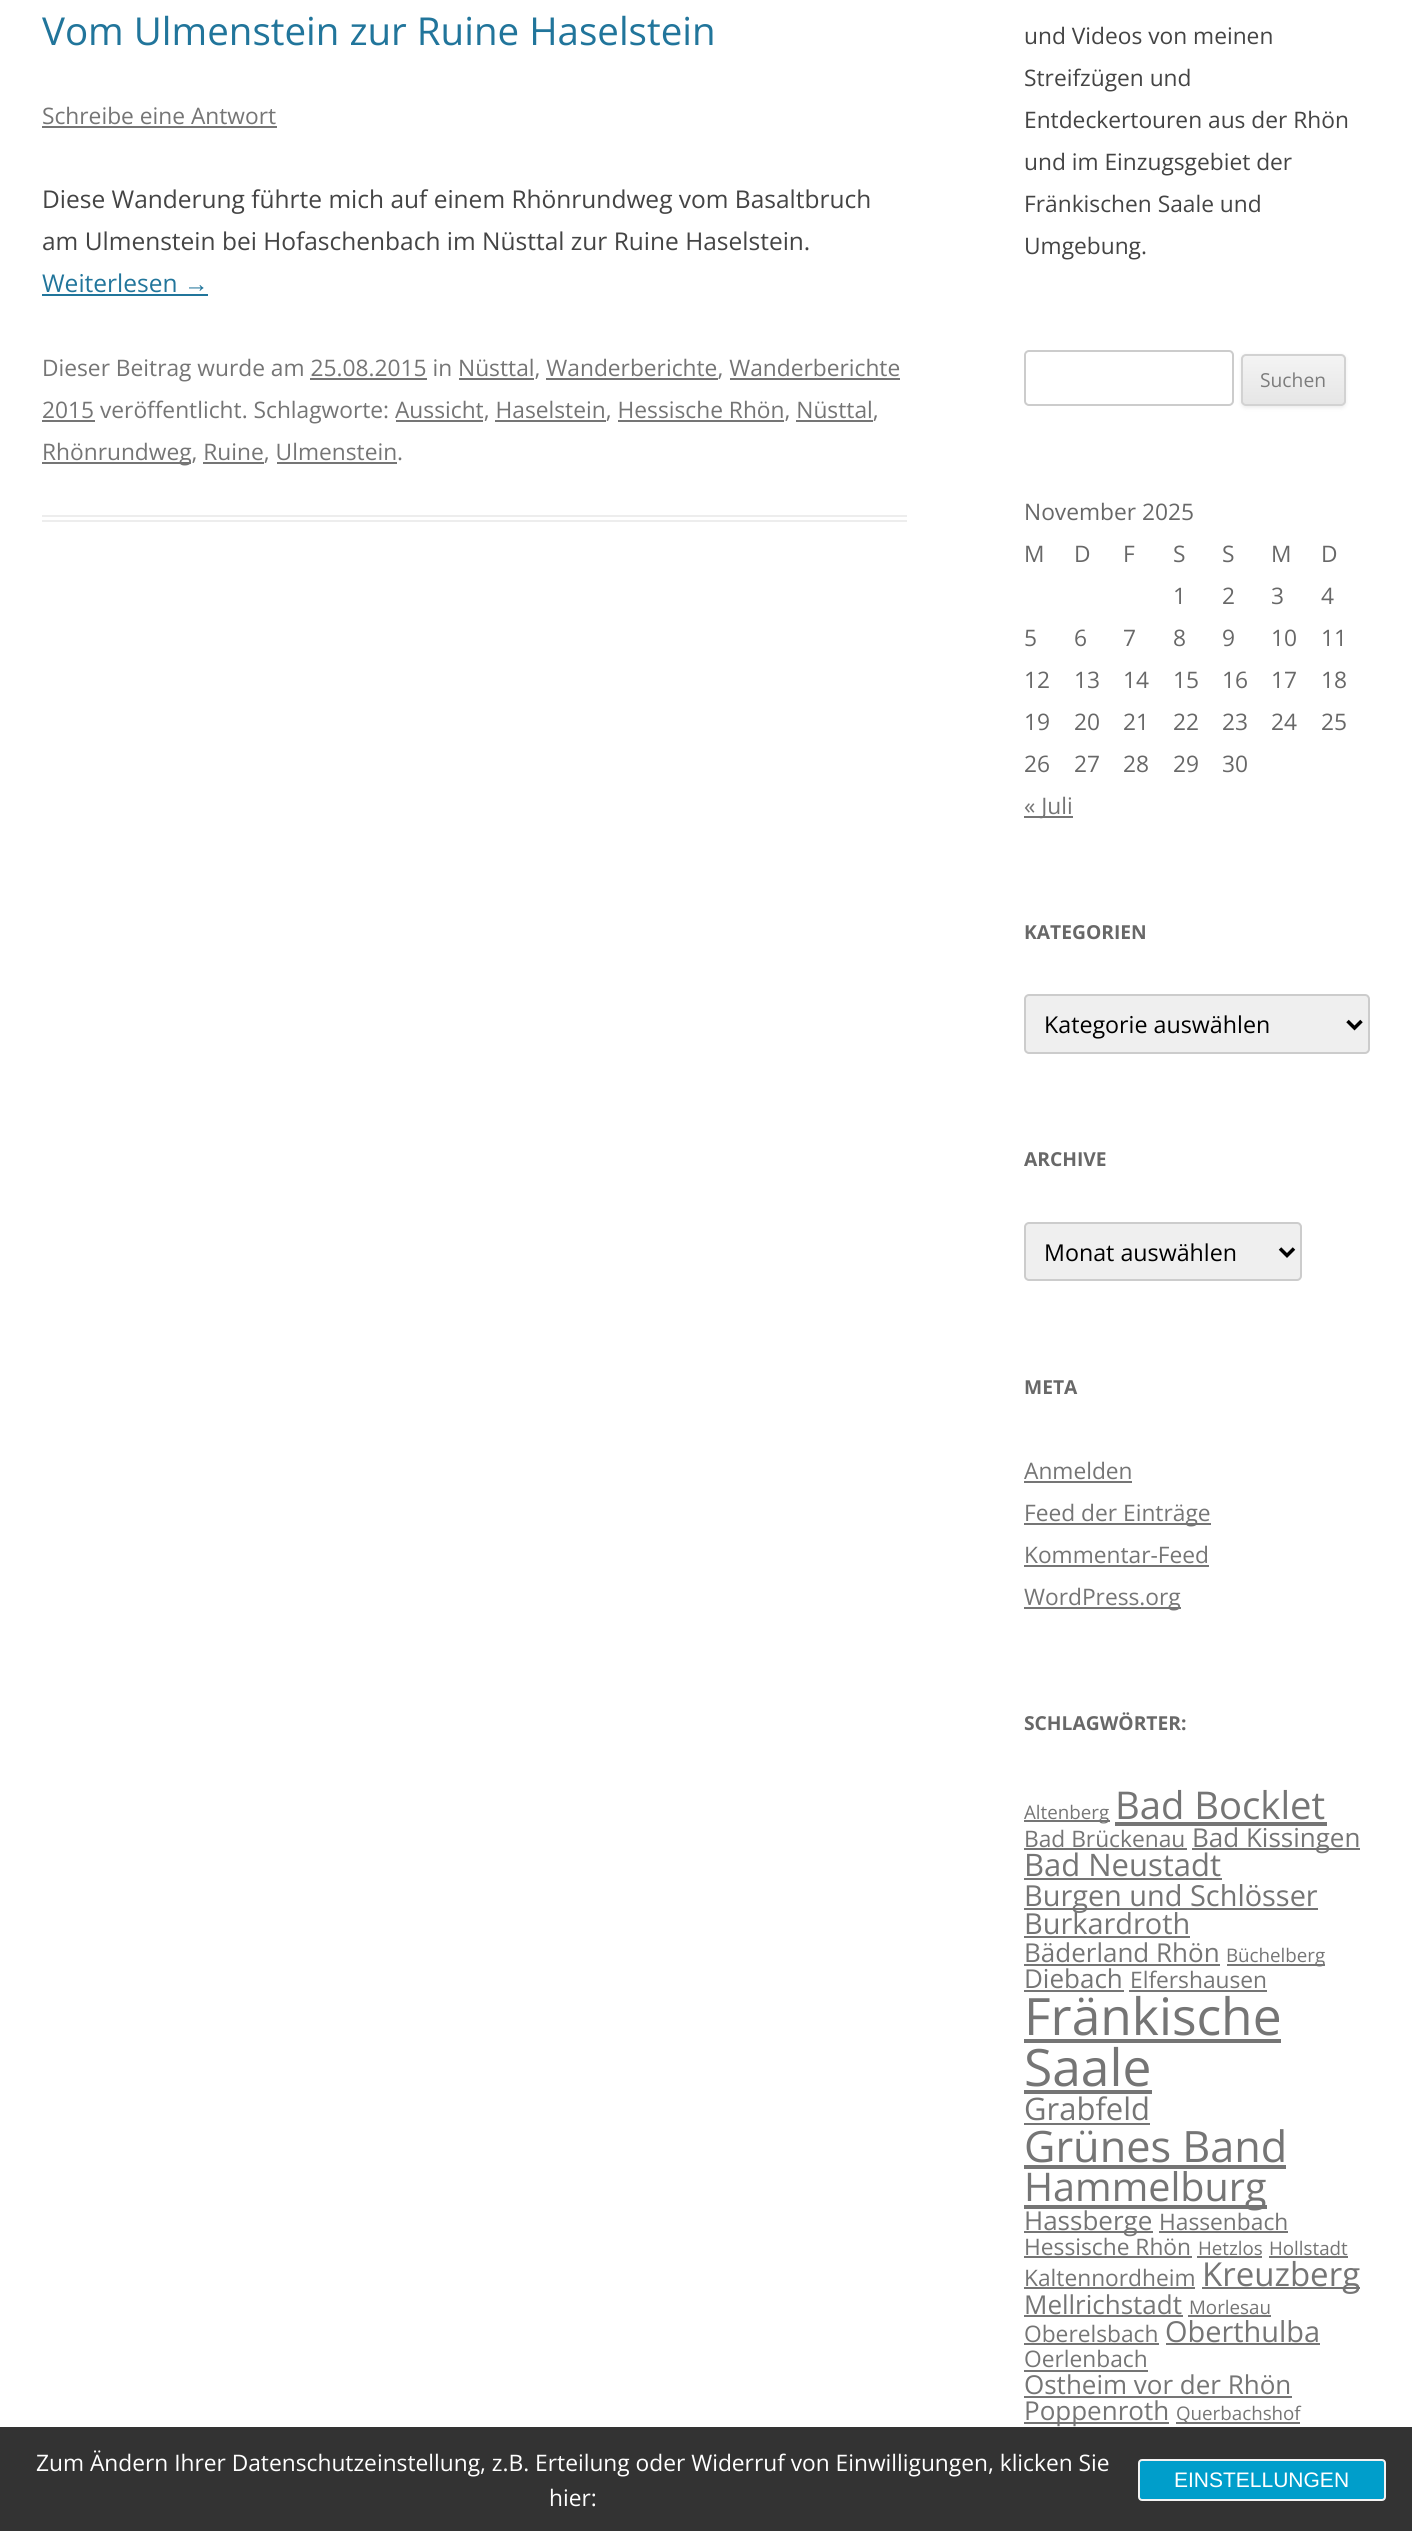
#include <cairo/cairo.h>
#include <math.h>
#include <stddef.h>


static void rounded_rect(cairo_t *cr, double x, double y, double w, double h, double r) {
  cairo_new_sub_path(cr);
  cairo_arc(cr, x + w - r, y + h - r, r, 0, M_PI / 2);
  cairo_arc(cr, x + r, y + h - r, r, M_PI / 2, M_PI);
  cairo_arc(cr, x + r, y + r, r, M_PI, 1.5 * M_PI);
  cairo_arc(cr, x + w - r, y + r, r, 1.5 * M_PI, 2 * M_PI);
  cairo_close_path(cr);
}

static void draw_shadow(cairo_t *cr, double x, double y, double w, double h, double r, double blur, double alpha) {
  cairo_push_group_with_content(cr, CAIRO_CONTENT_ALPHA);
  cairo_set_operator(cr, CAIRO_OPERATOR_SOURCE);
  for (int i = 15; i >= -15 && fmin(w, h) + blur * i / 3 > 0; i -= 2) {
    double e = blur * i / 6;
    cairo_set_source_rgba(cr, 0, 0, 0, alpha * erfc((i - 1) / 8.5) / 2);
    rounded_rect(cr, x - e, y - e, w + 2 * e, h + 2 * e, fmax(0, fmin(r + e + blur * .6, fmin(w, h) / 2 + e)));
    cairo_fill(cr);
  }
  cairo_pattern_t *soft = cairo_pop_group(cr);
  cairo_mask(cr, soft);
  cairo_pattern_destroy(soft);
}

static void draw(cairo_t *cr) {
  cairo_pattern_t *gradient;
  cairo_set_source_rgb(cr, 1, 1, 1);
  cairo_paint(cr);
  cairo_set_source_rgb(cr, 237 / 255.0, 237 / 255.0, 237 / 255.0);
  cairo_rectangle(cr, 42, 515, 865, 2);
  cairo_fill(cr);
  cairo_rectangle(cr, 42, 520, 865, 2);
  cairo_fill(cr);
  cairo_set_source_rgb(cr, 117 / 255.0, 117 / 255.0, 117 / 255.0);
  cairo_rectangle(cr, 42, 126, 235, 2);
  cairo_fill(cr);
  cairo_set_source_rgb(cr, 33 / 255.0, 117 / 255.0, 155 / 255.0);
  cairo_rectangle(cr, 42, 294, 166, 2);
  cairo_fill(cr);
  cairo_set_source_rgb(cr, 117 / 255.0, 117 / 255.0, 117 / 255.0);
  cairo_rectangle(cr, 310, 378, 117, 2);
  cairo_fill(cr);
  cairo_rectangle(cr, 459, 378, 75, 2);
  cairo_fill(cr);
  cairo_rectangle(cr, 546, 378, 172, 2);
  cairo_fill(cr);
  cairo_rectangle(cr, 730, 378, 170, 2);
  cairo_fill(cr);
  cairo_rectangle(cr, 42, 420, 53, 2);
  cairo_fill(cr);
  cairo_rectangle(cr, 396, 420, 87, 2);
  cairo_fill(cr);
  cairo_rectangle(cr, 495, 420, 111, 2);
  cairo_fill(cr);
  cairo_rectangle(cr, 618, 420, 166, 2);
  cairo_fill(cr);
  cairo_rectangle(cr, 796, 420, 77, 2);
  cairo_fill(cr);
  cairo_rectangle(cr, 42, 462, 149, 2);
  cairo_fill(cr);
  cairo_rectangle(cr, 203, 462, 61, 2);
  cairo_fill(cr);
  cairo_rectangle(cr, 277, 462, 120, 2);
  cairo_fill(cr);
  rounded_rect(cr, 1025, 351, 208, 54, 4);
  cairo_set_source_rgb(cr, 204 / 255.0, 204 / 255.0, 204 / 255.0);
  cairo_stroke(cr);
  cairo_set_source_rgb(cr, 64 / 255.0, 64 / 255.0, 64 / 255.0);
  draw_shadow(cr, 1241, 355, 105, 53, 5, 2, 0.1);
  cairo_save(cr);
  rounded_rect(cr, 1241, 354, 105, 52, 5);
  cairo_clip(cr);
  gradient = cairo_pattern_create_linear(1293, 355, 1293, 404);
  cairo_pattern_add_color_stop_rgba(gradient, 0, 244 / 255.0, 244 / 255.0, 244 / 255.0, 1);
  cairo_pattern_add_color_stop_rgba(gradient, 1, 230 / 255.0, 230 / 255.0, 230 / 255.0, 1);
  cairo_set_source(cr, gradient);
  cairo_pattern_destroy(gradient);
  cairo_rectangle(cr, 1241, 355, 105, 49);
  cairo_fill(cr);
  cairo_restore(cr);
  rounded_rect(cr, 1242, 355, 103, 50, 4);
  cairo_set_source_rgb(cr, 210 / 255.0, 210 / 255.0, 210 / 255.0);
  cairo_stroke(cr);
  cairo_set_source_rgb(cr, 117 / 255.0, 117 / 255.0, 117 / 255.0);
  cairo_rectangle(cr, 1024, 816, 49, 2);
  cairo_fill(cr);
  cairo_set_source_rgb(cr, 239 / 255.0, 239 / 255.0, 239 / 255.0);
  rounded_rect(cr, 1025, 995, 344, 58, 4);
  cairo_fill_preserve(cr);
  cairo_set_source_rgb(cr, 204 / 255.0, 204 / 255.0, 204 / 255.0);
  cairo_stroke(cr);
  cairo_new_path(cr);
  cairo_move_to(cr, 1347.5, 1021);
  cairo_line_to(cr, 1354.5, 1028);
  cairo_line_to(cr, 1361.5, 1021);
  cairo_set_source_rgb(cr, 0, 0, 0);
  cairo_set_line_width(cr, 3.5);
  cairo_stroke(cr);
  cairo_set_source_rgb(cr, 239 / 255.0, 239 / 255.0, 239 / 255.0);
  rounded_rect(cr, 1025, 1223, 276, 57, 4);
  cairo_fill_preserve(cr);
  cairo_set_source_rgb(cr, 204 / 255.0, 204 / 255.0, 204 / 255.0);
  cairo_set_line_width(cr, 2);
  cairo_stroke(cr);
  cairo_new_path(cr);
  cairo_move_to(cr, 1280, 1248.5);
  cairo_line_to(cr, 1287, 1255.5);
  cairo_line_to(cr, 1294, 1248.5);
  cairo_set_source_rgb(cr, 0, 0, 0);
  cairo_set_line_width(cr, 3.5);
  cairo_stroke(cr);
  cairo_set_source_rgb(cr, 117 / 255.0, 117 / 255.0, 117 / 255.0);
  cairo_rectangle(cr, 1024, 1481, 108, 2);
  cairo_fill(cr);
  cairo_rectangle(cr, 1024, 1523, 187, 2);
  cairo_fill(cr);
  cairo_rectangle(cr, 1024, 1565, 185, 2);
  cairo_fill(cr);
  cairo_rectangle(cr, 1024, 1607, 157, 2);
  cairo_fill(cr);
  cairo_rectangle(cr, 1024, 1820, 86, 2);
  cairo_fill(cr);
  cairo_rectangle(cr, 1115, 1822, 212, 4);
  cairo_fill(cr);
  cairo_rectangle(cr, 1024, 1848, 163, 2);
  cairo_fill(cr);
  cairo_rectangle(cr, 1192, 1848, 168, 2);
  cairo_fill(cr);
  cairo_rectangle(cr, 1024, 1878, 198, 2);
  cairo_fill(cr);
  cairo_rectangle(cr, 1024, 1908, 294, 2);
  cairo_fill(cr);
  cairo_rectangle(cr, 1024, 1936, 166, 2);
  cairo_fill(cr);
  cairo_rectangle(cr, 1024, 1964, 196, 2);
  cairo_fill(cr);
  cairo_rectangle(cr, 1227, 1964, 98, 2);
  cairo_fill(cr);
  cairo_rectangle(cr, 1024, 1990, 100, 2);
  cairo_fill(cr);
  cairo_rectangle(cr, 1129, 1990, 138, 2);
  cairo_fill(cr);
  cairo_rectangle(cr, 1024, 2039, 257, 4);
  cairo_fill(cr);
  cairo_rectangle(cr, 1024, 2090, 128, 4);
  cairo_fill(cr);
  cairo_rectangle(cr, 1024, 2123, 126, 2);
  cairo_fill(cr);
  cairo_rectangle(cr, 1024, 2165, 262, 4);
  cairo_fill(cr);
  cairo_rectangle(cr, 1024, 2205, 243, 4);
  cairo_fill(cr);
  cairo_rectangle(cr, 1024, 2231, 129, 2);
  cairo_fill(cr);
  cairo_rectangle(cr, 1159, 2231, 129, 2);
  cairo_fill(cr);
  cairo_rectangle(cr, 1024, 2256, 168, 2);
  cairo_fill(cr);
  cairo_rectangle(cr, 1197, 2256, 65, 2);
  cairo_fill(cr);
  cairo_rectangle(cr, 1269, 2256, 79, 2);
  cairo_fill(cr);
  cairo_rectangle(cr, 1024, 2287, 171, 2);
  cairo_fill(cr);
  cairo_rectangle(cr, 1202, 2287, 158, 2);
  cairo_fill(cr);
  cairo_rectangle(cr, 1024, 2315, 159, 2);
  cairo_fill(cr);
  cairo_rectangle(cr, 1188, 2315, 83, 2);
  cairo_fill(cr);
  cairo_rectangle(cr, 1024, 2343, 135, 2);
  cairo_fill(cr);
  cairo_rectangle(cr, 1166, 2343, 154, 2);
  cairo_fill(cr);
  cairo_rectangle(cr, 1024, 2370, 124, 2);
  cairo_fill(cr);
  cairo_rectangle(cr, 1024, 2396, 268, 2);
  cairo_fill(cr);
  cairo_rectangle(cr, 1024, 2422, 145, 2);
  cairo_fill(cr);
  cairo_rectangle(cr, 1176, 2422, 124, 2);
  cairo_fill(cr);
  cairo_set_source_rgb(cr, 51 / 255.0, 51 / 255.0, 51 / 255.0);
  cairo_rectangle(cr, 0, 2427, 1412, 104);
  cairo_fill(cr);
  cairo_set_source_rgb(cr, 0, 158 / 255.0, 203 / 255.0);
  rounded_rect(cr, 1139, 2460, 246, 40, 3);
  cairo_fill_preserve(cr);
  cairo_set_source_rgb(cr, 243 / 255.0, 243 / 255.0, 243 / 255.0);
  cairo_set_line_width(cr, 2);
  cairo_stroke(cr);
  cairo_select_font_face(cr, "Open Sans", CAIRO_FONT_SLANT_NORMAL, CAIRO_FONT_WEIGHT_NORMAL);
  cairo_set_font_size(cr, 38.5);
  cairo_set_source_rgb(cr, 33 / 255.0, 117 / 255.0, 155 / 255.0);
  cairo_move_to(cr, 42, 45);
  cairo_show_text(cr, "Vom Ulmenstein zur Ruine Haselstein");
  cairo_set_font_size(cr, 22.75);
  cairo_set_source_rgb(cr, 117 / 255.0, 117 / 255.0, 117 / 255.0);
  cairo_move_to(cr, 42, 124);
  cairo_show_text(cr, "Schreibe eine Antwort");
  cairo_set_font_size(cr, 24.5);
  cairo_set_source_rgb(cr, 68 / 255.0, 68 / 255.0, 68 / 255.0);
  cairo_move_to(cr, 42, 208);
  cairo_show_text(cr, "Diese Wanderung führte mich auf einem Rhönrundweg vom Basaltbruch");
  cairo_move_to(cr, 42, 250);
  cairo_show_text(cr, "am Ulmenstein bei Hofaschenbach im Nüsttal zur Ruine Haselstein.");
  cairo_set_source_rgb(cr, 33 / 255.0, 117 / 255.0, 155 / 255.0);
  cairo_move_to(cr, 42, 292);
  cairo_show_text(cr, "Weiterlesen");
  cairo_select_font_face(cr, "Liberation Sans", CAIRO_FONT_SLANT_NORMAL, CAIRO_FONT_WEIGHT_NORMAL);
  cairo_move_to(cr, 184, 292);
  cairo_show_text(cr, "→");
  cairo_select_font_face(cr, "Open Sans", CAIRO_FONT_SLANT_NORMAL, CAIRO_FONT_WEIGHT_NORMAL);
  cairo_set_font_size(cr, 22.75);
  cairo_set_source_rgb(cr, 117 / 255.0, 117 / 255.0, 117 / 255.0);
  cairo_move_to(cr, 42, 376);
  cairo_show_text(cr, "Dieser Beitrag wurde am 25.08.2015 in Nüsttal, Wanderberichte, Wanderberichte");
  cairo_move_to(cr, 42, 418);
  cairo_show_text(cr, "2015 veröffentlicht. Schlagworte: Aussicht, Haselstein, Hessische Rhön, Nüsttal,");
  cairo_move_to(cr, 42, 460);
  cairo_show_text(cr, "Rhönrundweg, Ruine, Ulmenstein.");
  cairo_set_source_rgb(cr, 68 / 255.0, 68 / 255.0, 68 / 255.0);
  cairo_move_to(cr, 1024, 44);
  cairo_show_text(cr, "und Videos von meinen");
  cairo_move_to(cr, 1024, 86);
  cairo_show_text(cr, "Streifzügen und");
  cairo_move_to(cr, 1024, 128);
  cairo_show_text(cr, "Entdeckertouren aus der Rhön");
  cairo_move_to(cr, 1024, 170);
  cairo_show_text(cr, "und im Einzugsgebiet der");
  cairo_move_to(cr, 1024, 212);
  cairo_show_text(cr, "Fränkischen Saale und");
  cairo_move_to(cr, 1024, 254);
  cairo_show_text(cr, "Umgebung.");
  cairo_set_font_size(cr, 19.25);
  cairo_set_source_rgb(cr, 124 / 255.0, 124 / 255.0, 124 / 255.0);
  cairo_move_to(cr, 1260, 387);
  cairo_show_text(cr, "Suchen");
  cairo_set_font_size(cr, 22.75);
  cairo_set_source_rgb(cr, 104 / 255.0, 104 / 255.0, 104 / 255.0);
  cairo_move_to(cr, 1024, 520);
  cairo_show_text(cr, "November 2025");
  cairo_move_to(cr, 1024, 562);
  cairo_show_text(cr, "M");
  cairo_move_to(cr, 1074, 562);
  cairo_show_text(cr, "D");
  cairo_move_to(cr, 1123, 562);
  cairo_show_text(cr, "F");
  cairo_move_to(cr, 1173, 562);
  cairo_show_text(cr, "S");
  cairo_move_to(cr, 1222, 562);
  cairo_show_text(cr, "S");
  cairo_move_to(cr, 1271, 562);
  cairo_show_text(cr, "M");
  cairo_move_to(cr, 1321, 562);
  cairo_show_text(cr, "D");
  cairo_move_to(cr, 1173, 604);
  cairo_show_text(cr, "1");
  cairo_move_to(cr, 1222, 604);
  cairo_show_text(cr, "2");
  cairo_move_to(cr, 1271, 604);
  cairo_show_text(cr, "3");
  cairo_move_to(cr, 1321, 604);
  cairo_show_text(cr, "4");
  cairo_move_to(cr, 1024, 646);
  cairo_show_text(cr, "5");
  cairo_move_to(cr, 1074, 646);
  cairo_show_text(cr, "6");
  cairo_move_to(cr, 1123, 646);
  cairo_show_text(cr, "7");
  cairo_move_to(cr, 1173, 646);
  cairo_show_text(cr, "8");
  cairo_move_to(cr, 1222, 646);
  cairo_show_text(cr, "9");
  cairo_move_to(cr, 1271, 646);
  cairo_show_text(cr, "10");
  cairo_move_to(cr, 1321, 646);
  cairo_show_text(cr, "11");
  cairo_move_to(cr, 1024, 688);
  cairo_show_text(cr, "12");
  cairo_move_to(cr, 1074, 688);
  cairo_show_text(cr, "13");
  cairo_move_to(cr, 1123, 688);
  cairo_show_text(cr, "14");
  cairo_move_to(cr, 1173, 688);
  cairo_show_text(cr, "15");
  cairo_move_to(cr, 1222, 688);
  cairo_show_text(cr, "16");
  cairo_move_to(cr, 1271, 688);
  cairo_show_text(cr, "17");
  cairo_move_to(cr, 1321, 688);
  cairo_show_text(cr, "18");
  cairo_move_to(cr, 1024, 730);
  cairo_show_text(cr, "19");
  cairo_move_to(cr, 1074, 730);
  cairo_show_text(cr, "20");
  cairo_move_to(cr, 1123, 730);
  cairo_show_text(cr, "21");
  cairo_move_to(cr, 1173, 730);
  cairo_show_text(cr, "22");
  cairo_move_to(cr, 1222, 730);
  cairo_show_text(cr, "23");
  cairo_move_to(cr, 1271, 730);
  cairo_show_text(cr, "24");
  cairo_move_to(cr, 1321, 730);
  cairo_show_text(cr, "25");
  cairo_move_to(cr, 1024, 772);
  cairo_show_text(cr, "26");
  cairo_move_to(cr, 1074, 772);
  cairo_show_text(cr, "27");
  cairo_move_to(cr, 1123, 772);
  cairo_show_text(cr, "28");
  cairo_move_to(cr, 1173, 772);
  cairo_show_text(cr, "29");
  cairo_move_to(cr, 1222, 772);
  cairo_show_text(cr, "30");
  cairo_set_source_rgb(cr, 117 / 255.0, 117 / 255.0, 117 / 255.0);
  cairo_move_to(cr, 1024, 814);
  cairo_show_text(cr, "« Juli");
  cairo_select_font_face(cr, "Open Sans", CAIRO_FONT_SLANT_NORMAL, CAIRO_FONT_WEIGHT_BOLD);
  cairo_set_font_size(cr, 19.25);
  cairo_set_source_rgb(cr, 104 / 255.0, 104 / 255.0, 104 / 255.0);
  cairo_move_to(cr, 1024, 939);
  cairo_show_text(cr, "KATEGORIEN");
  cairo_select_font_face(cr, "Open Sans", CAIRO_FONT_SLANT_NORMAL, CAIRO_FONT_WEIGHT_NORMAL);
  cairo_set_font_size(cr, 23.25);
  cairo_set_source_rgb(cr, 0, 0, 0);
  cairo_move_to(cr, 1044, 1033);
  cairo_show_text(cr, "Kategorie auswählen");
  cairo_select_font_face(cr, "Open Sans", CAIRO_FONT_SLANT_NORMAL, CAIRO_FONT_WEIGHT_BOLD);
  cairo_set_font_size(cr, 19.25);
  cairo_set_source_rgb(cr, 104 / 255.0, 104 / 255.0, 104 / 255.0);
  cairo_move_to(cr, 1024, 1166);
  cairo_show_text(cr, "ARCHIVE");
  cairo_select_font_face(cr, "Open Sans", CAIRO_FONT_SLANT_NORMAL, CAIRO_FONT_WEIGHT_NORMAL);
  cairo_set_font_size(cr, 23.25);
  cairo_set_source_rgb(cr, 0, 0, 0);
  cairo_move_to(cr, 1044, 1261);
  cairo_show_text(cr, "Monat auswählen");
  cairo_select_font_face(cr, "Open Sans", CAIRO_FONT_SLANT_NORMAL, CAIRO_FONT_WEIGHT_BOLD);
  cairo_set_font_size(cr, 19.25);
  cairo_set_source_rgb(cr, 104 / 255.0, 104 / 255.0, 104 / 255.0);
  cairo_move_to(cr, 1024, 1394);
  cairo_show_text(cr, "META");
  cairo_select_font_face(cr, "Open Sans", CAIRO_FONT_SLANT_NORMAL, CAIRO_FONT_WEIGHT_NORMAL);
  cairo_set_font_size(cr, 22.75);
  cairo_set_source_rgb(cr, 117 / 255.0, 117 / 255.0, 117 / 255.0);
  cairo_move_to(cr, 1024, 1479);
  cairo_show_text(cr, "Anmelden");
  cairo_move_to(cr, 1024, 1521);
  cairo_show_text(cr, "Feed der Einträge");
  cairo_move_to(cr, 1024, 1563);
  cairo_show_text(cr, "Kommentar-Feed");
  cairo_move_to(cr, 1024, 1605);
  cairo_show_text(cr, "WordPress.org");
  cairo_select_font_face(cr, "Open Sans", CAIRO_FONT_SLANT_NORMAL, CAIRO_FONT_WEIGHT_BOLD);
  cairo_set_font_size(cr, 19.25);
  cairo_set_source_rgb(cr, 104 / 255.0, 104 / 255.0, 104 / 255.0);
  cairo_move_to(cr, 1024, 1730);
  cairo_show_text(cr, "SCHLAGWÖRTER:");
  cairo_select_font_face(cr, "Open Sans", CAIRO_FONT_SLANT_NORMAL, CAIRO_FONT_WEIGHT_NORMAL);
  cairo_set_font_size(cr, 18.75);
  cairo_set_source_rgb(cr, 117 / 255.0, 117 / 255.0, 117 / 255.0);
  cairo_move_to(cr, 1024, 1819);
  cairo_show_text(cr, "Altenberg");
  cairo_set_font_size(cr, 38.25);
  cairo_move_to(cr, 1115, 1819);
  cairo_show_text(cr, "Bad Bocklet");
  cairo_set_font_size(cr, 22.75);
  cairo_move_to(cr, 1024, 1847);
  cairo_show_text(cr, "Bad Brückenau");
  cairo_set_font_size(cr, 26);
  cairo_move_to(cr, 1192, 1847);
  cairo_show_text(cr, "Bad Kissingen");
  cairo_set_font_size(cr, 31);
  cairo_move_to(cr, 1024, 1876);
  cairo_show_text(cr, "Bad Neustadt");
  cairo_set_font_size(cr, 28.9);
  cairo_move_to(cr, 1024, 1906);
  cairo_show_text(cr, "Burgen und Schlösser");
  cairo_move_to(cr, 1024, 1934);
  cairo_show_text(cr, "Burkardroth");
  cairo_set_font_size(cr, 26);
  cairo_move_to(cr, 1024, 1962);
  cairo_show_text(cr, "Bäderland Rhön");
  cairo_set_font_size(cr, 18.75);
  cairo_move_to(cr, 1226, 1962);
  cairo_show_text(cr, "Büchelberg");
  cairo_set_font_size(cr, 26);
  cairo_move_to(cr, 1024, 1988);
  cairo_show_text(cr, "Diebach");
  cairo_set_font_size(cr, 22.75);
  cairo_move_to(cr, 1130, 1988);
  cairo_show_text(cr, "Elfershausen");
  cairo_set_font_size(cr, 51.5);
  cairo_move_to(cr, 1024, 2035);
  cairo_show_text(cr, "Fränkische");
  cairo_move_to(cr, 1024, 2086);
  cairo_show_text(cr, "Saale");
  cairo_set_font_size(cr, 31);
  cairo_move_to(cr, 1024, 2120);
  cairo_show_text(cr, "Grabfeld");
  cairo_set_font_size(cr, 43.25);
  cairo_move_to(cr, 1024, 2162);
  cairo_show_text(cr, "Grünes Band");
  cairo_set_font_size(cr, 39.5);
  cairo_move_to(cr, 1024, 2201);
  cairo_show_text(cr, "Hammelburg");
  cairo_set_font_size(cr, 26);
  cairo_move_to(cr, 1024, 2230);
  cairo_show_text(cr, "Hassberge");
  cairo_set_font_size(cr, 22.75);
  cairo_move_to(cr, 1159, 2230);
  cairo_show_text(cr, "Hassenbach");
  cairo_move_to(cr, 1024, 2255);
  cairo_show_text(cr, "Hessische Rhön");
  cairo_set_font_size(cr, 18.75);
  cairo_move_to(cr, 1198, 2255);
  cairo_show_text(cr, "Hetzlos");
  cairo_move_to(cr, 1269, 2255);
  cairo_show_text(cr, "Hollstadt");
  cairo_set_font_size(cr, 22.75);
  cairo_move_to(cr, 1024, 2286);
  cairo_show_text(cr, "Kaltennordheim");
  cairo_set_font_size(cr, 33);
  cairo_move_to(cr, 1202, 2286);
  cairo_show_text(cr, "Kreuzberg");
  cairo_set_font_size(cr, 26);
  cairo_move_to(cr, 1024, 2314);
  cairo_show_text(cr, "Mellrichstadt");
  cairo_set_font_size(cr, 18.75);
  cairo_move_to(cr, 1189, 2314);
  cairo_show_text(cr, "Morlesau");
  cairo_set_font_size(cr, 22.75);
  cairo_move_to(cr, 1024, 2342);
  cairo_show_text(cr, "Oberelsbach");
  cairo_set_font_size(cr, 28.9);
  cairo_move_to(cr, 1165, 2342);
  cairo_show_text(cr, "Oberthulba");
  cairo_set_font_size(cr, 22.75);
  cairo_move_to(cr, 1024, 2367);
  cairo_show_text(cr, "Oerlenbach");
  cairo_set_font_size(cr, 26);
  cairo_move_to(cr, 1024, 2394);
  cairo_show_text(cr, "Ostheim vor der Rhön");
  cairo_move_to(cr, 1024, 2420);
  cairo_show_text(cr, "Poppenroth");
  cairo_set_font_size(cr, 18.75);
  cairo_move_to(cr, 1176, 2420);
  cairo_show_text(cr, "Querbachshof");
  cairo_set_font_size(cr, 22.75);
  cairo_set_source_rgb(cr, 1, 1, 1);
  cairo_move_to(cr, 36, 2471);
  cairo_show_text(cr, "Zum Ändern Ihrer Datenschutzeinstellung, z.B. Erteilung oder Widerruf von Einwilligungen, klicken Sie");
  cairo_move_to(cr, 549, 2506);
  cairo_show_text(cr, "hier:");
  cairo_select_font_face(cr, "Liberation Sans", CAIRO_FONT_SLANT_NORMAL, CAIRO_FONT_WEIGHT_NORMAL);
  cairo_set_font_size(cr, 21);
  cairo_move_to(cr, 1174, 2487);
  cairo_show_text(cr, "EINSTELLUNGEN");
}

int main(void) {
  cairo_surface_t *surface = cairo_image_surface_create(CAIRO_FORMAT_RGB24, 1412, 2531);
  cairo_t *cr = cairo_create(surface);
  cairo_font_options_t *options = cairo_font_options_create();
  cairo_font_options_set_hint_metrics(options, CAIRO_HINT_METRICS_OFF);
  cairo_font_options_set_hint_style(options, CAIRO_HINT_STYLE_NONE);
  cairo_set_font_options(cr, options);
  cairo_set_miter_limit(cr, 4);
  draw(cr);
  cairo_surface_write_to_png(surface, "out.png");
  cairo_font_options_destroy(options);
  cairo_destroy(cr);
  cairo_surface_destroy(surface);
  return 0;
}
